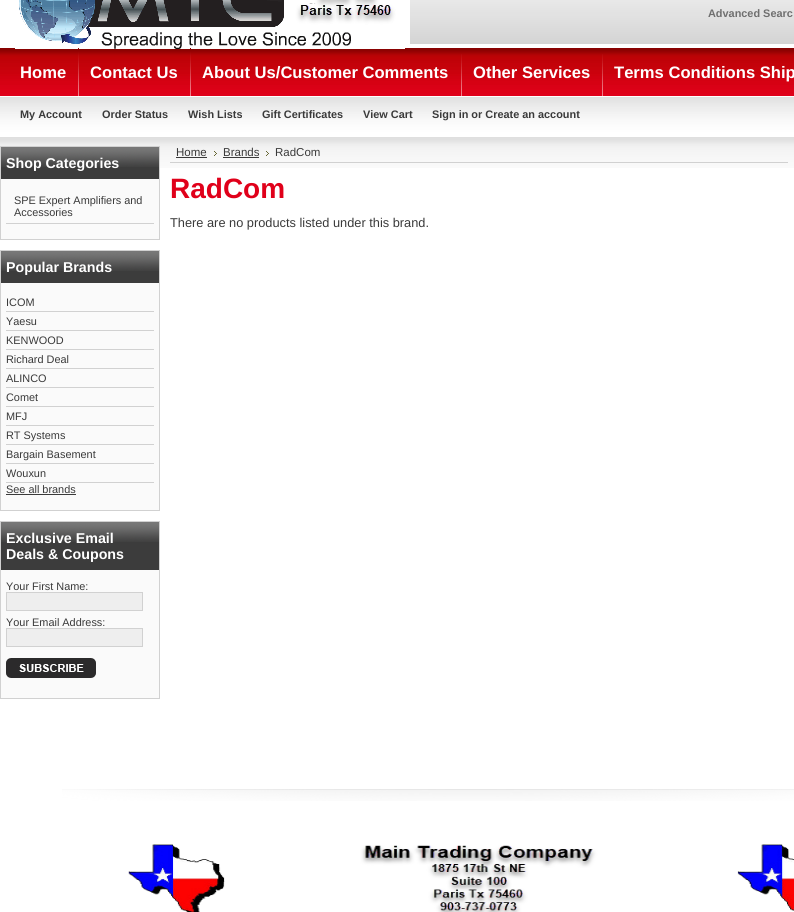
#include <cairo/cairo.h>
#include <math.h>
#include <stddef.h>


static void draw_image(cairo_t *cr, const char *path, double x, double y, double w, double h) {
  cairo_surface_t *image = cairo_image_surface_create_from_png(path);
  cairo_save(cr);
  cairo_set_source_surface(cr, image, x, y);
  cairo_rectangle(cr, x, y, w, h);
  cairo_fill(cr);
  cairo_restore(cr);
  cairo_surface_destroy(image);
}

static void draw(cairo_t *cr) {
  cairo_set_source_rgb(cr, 1, 1, 1);
  cairo_paint(cr);
  draw_image(cr, "images/1.png", 0, 0, 794, 168);
  cairo_set_source_rgb(cr, 1, 1, 1);
  cairo_rectangle(cr, 0, 0, 410, 44);
  cairo_fill(cr);
  draw_image(cr, "images/2.png", 15, 0, 390, 49);
  draw_image(cr, "images/3.png", 78, 48, 1, 48);
  draw_image(cr, "images/3.png", 190, 48, 1, 48);
  draw_image(cr, "images/4.png", 461, 54, 1, 42);
  draw_image(cr, "images/4.png", 602, 54, 1, 42);
  cairo_set_source_rgb(cr, 250 / 255.0, 250 / 255.0, 250 / 255.0);
  cairo_rectangle(cr, 1, 179, 158, 60);
  cairo_fill(cr);
  cairo_rectangle(cr, 0.5, 146.5, 159, 93);
  cairo_set_source_rgb(cr, 209 / 255.0, 209 / 255.0, 209 / 255.0);
  cairo_set_line_width(cr, 1);
  cairo_stroke(cr);
  cairo_set_source_rgb(cr, 60 / 255.0, 60 / 255.0, 60 / 255.0);
  cairo_rectangle(cr, 1, 167, 158, 12);
  cairo_fill(cr);
  draw_image(cr, "images/5.png", 1, 147, 158, 20);
  cairo_set_source_rgb(cr, 209 / 255.0, 209 / 255.0, 209 / 255.0);
  cairo_rectangle(cr, 6, 223, 148, 1);
  cairo_fill(cr);
  cairo_set_source_rgb(cr, 250 / 255.0, 250 / 255.0, 250 / 255.0);
  cairo_rectangle(cr, 1, 283, 158, 227);
  cairo_fill(cr);
  cairo_rectangle(cr, 0.5, 250.5, 159, 260);
  cairo_set_source_rgb(cr, 209 / 255.0, 209 / 255.0, 209 / 255.0);
  cairo_stroke(cr);
  cairo_set_source_rgb(cr, 60 / 255.0, 60 / 255.0, 60 / 255.0);
  cairo_rectangle(cr, 1, 271, 158, 12);
  cairo_fill(cr);
  draw_image(cr, "images/5.png", 1, 251, 158, 20);
  cairo_set_source_rgb(cr, 209 / 255.0, 209 / 255.0, 209 / 255.0);
  cairo_rectangle(cr, 6, 311, 148, 1);
  cairo_fill(cr);
  cairo_rectangle(cr, 6, 330, 148, 1);
  cairo_fill(cr);
  cairo_rectangle(cr, 6, 349, 148, 1);
  cairo_fill(cr);
  cairo_rectangle(cr, 6, 368, 148, 1);
  cairo_fill(cr);
  cairo_rectangle(cr, 6, 387, 148, 1);
  cairo_fill(cr);
  cairo_rectangle(cr, 6, 406, 148, 1);
  cairo_fill(cr);
  cairo_rectangle(cr, 6, 425, 148, 1);
  cairo_fill(cr);
  cairo_rectangle(cr, 6, 444, 148, 1);
  cairo_fill(cr);
  cairo_rectangle(cr, 6, 463, 148, 1);
  cairo_fill(cr);
  cairo_rectangle(cr, 6, 482, 148, 1);
  cairo_fill(cr);
  cairo_set_source_rgb(cr, 58 / 255.0, 58 / 255.0, 58 / 255.0);
  cairo_rectangle(cr, 6, 494, 70, 1);
  cairo_fill(cr);
  cairo_set_source_rgb(cr, 250 / 255.0, 250 / 255.0, 250 / 255.0);
  cairo_rectangle(cr, 1, 570, 158, 128);
  cairo_fill(cr);
  cairo_rectangle(cr, 0.5, 521.5, 159, 177);
  cairo_set_source_rgb(cr, 209 / 255.0, 209 / 255.0, 209 / 255.0);
  cairo_stroke(cr);
  cairo_set_source_rgb(cr, 60 / 255.0, 60 / 255.0, 60 / 255.0);
  cairo_rectangle(cr, 1, 542, 158, 28);
  cairo_fill(cr);
  draw_image(cr, "images/5.png", 1, 522, 158, 20);
  cairo_set_source_rgb(cr, 238 / 255.0, 238 / 255.0, 238 / 255.0);
  cairo_rectangle(cr, 6.5, 592.5, 136, 18);
  cairo_fill_preserve(cr);
  cairo_set_source_rgb(cr, 209 / 255.0, 209 / 255.0, 209 / 255.0);
  cairo_stroke(cr);
  cairo_set_source_rgb(cr, 238 / 255.0, 238 / 255.0, 238 / 255.0);
  cairo_rectangle(cr, 6.5, 628.5, 136, 18);
  cairo_fill_preserve(cr);
  cairo_set_source_rgb(cr, 209 / 255.0, 209 / 255.0, 209 / 255.0);
  cairo_stroke(cr);
  draw_image(cr, "images/6.png", 6, 658, 90, 20);
  cairo_rectangle(cr, 170, 162, 618, 1);
  cairo_fill(cr);
  cairo_set_source_rgb(cr, 58 / 255.0, 58 / 255.0, 58 / 255.0);
  cairo_rectangle(cr, 176, 157, 31, 1);
  cairo_fill(cr);
  draw_image(cr, "images/7.png", 214, 151, 3, 5);
  cairo_rectangle(cr, 223, 157, 36, 1);
  cairo_fill(cr);
  draw_image(cr, "images/7.png", 266, 151, 3, 5);
  draw_image(cr, "images/8.png", 62, 789, 732, 12);
  draw_image(cr, "images/9.png", 128, 844, 666, 68);
  cairo_select_font_face(cr, "Liberation Sans", CAIRO_FONT_SLANT_NORMAL, CAIRO_FONT_WEIGHT_BOLD);
  cairo_set_font_size(cr, 10.9);
  cairo_set_source_rgb(cr, 111 / 255.0, 111 / 255.0, 111 / 255.0);
  cairo_move_to(cr, 708, 17);
  cairo_show_text(cr, "Advanced Searc");
  cairo_set_font_size(cr, 16.6);
  cairo_set_source_rgb(cr, 1, 1, 1);
  cairo_move_to(cr, 20, 78);
  cairo_show_text(cr, "Home");
  cairo_move_to(cr, 90, 78);
  cairo_show_text(cr, "Contact Us");
  cairo_move_to(cr, 202, 78);
  cairo_show_text(cr, "About Us/Customer Comments");
  cairo_move_to(cr, 473, 78);
  cairo_show_text(cr, "Other Services");
  cairo_move_to(cr, 614, 78);
  cairo_show_text(cr, "Terms Conditions Ship");
  cairo_set_font_size(cr, 10.9);
  cairo_set_source_rgb(cr, 58 / 255.0, 58 / 255.0, 58 / 255.0);
  cairo_move_to(cr, 20, 118);
  cairo_show_text(cr, "My Account");
  cairo_move_to(cr, 102, 118);
  cairo_show_text(cr, "Order Status");
  cairo_move_to(cr, 188, 118);
  cairo_show_text(cr, "Wish Lists");
  cairo_move_to(cr, 262, 118);
  cairo_show_text(cr, "Gift Certificates");
  cairo_move_to(cr, 363, 118);
  cairo_show_text(cr, "View Cart");
  cairo_move_to(cr, 432, 118);
  cairo_show_text(cr, "Sign in or Create an account");
  cairo_set_font_size(cr, 14.25);
  cairo_set_source_rgb(cr, 1, 1, 1);
  cairo_move_to(cr, 6, 168);
  cairo_show_text(cr, "Shop Categories");
  cairo_select_font_face(cr, "Liberation Sans", CAIRO_FONT_SLANT_NORMAL, CAIRO_FONT_WEIGHT_NORMAL);
  cairo_set_font_size(cr, 10.9);
  cairo_set_source_rgb(cr, 58 / 255.0, 58 / 255.0, 58 / 255.0);
  cairo_move_to(cr, 14, 204);
  cairo_show_text(cr, "SPE Expert Amplifiers and");
  cairo_move_to(cr, 14, 216);
  cairo_show_text(cr, "Accessories");
  cairo_select_font_face(cr, "Liberation Sans", CAIRO_FONT_SLANT_NORMAL, CAIRO_FONT_WEIGHT_BOLD);
  cairo_set_font_size(cr, 14.25);
  cairo_set_source_rgb(cr, 1, 1, 1);
  cairo_move_to(cr, 6, 272);
  cairo_show_text(cr, "Popular Brands");
  cairo_select_font_face(cr, "Liberation Sans", CAIRO_FONT_SLANT_NORMAL, CAIRO_FONT_WEIGHT_NORMAL);
  cairo_set_font_size(cr, 10.9);
  cairo_set_source_rgb(cr, 58 / 255.0, 58 / 255.0, 58 / 255.0);
  cairo_move_to(cr, 6, 306);
  cairo_show_text(cr, "ICOM");
  cairo_move_to(cr, 6, 325);
  cairo_show_text(cr, "Yaesu");
  cairo_move_to(cr, 6, 344);
  cairo_show_text(cr, "KENWOOD");
  cairo_move_to(cr, 6, 363);
  cairo_show_text(cr, "Richard Deal");
  cairo_move_to(cr, 6, 382);
  cairo_show_text(cr, "ALINCO");
  cairo_move_to(cr, 6, 401);
  cairo_show_text(cr, "Comet");
  cairo_move_to(cr, 6, 420);
  cairo_show_text(cr, "MFJ");
  cairo_move_to(cr, 6, 439);
  cairo_show_text(cr, "RT Systems");
  cairo_move_to(cr, 6, 458);
  cairo_show_text(cr, "Bargain Basement");
  cairo_move_to(cr, 6, 477);
  cairo_show_text(cr, "Wouxun");
  cairo_move_to(cr, 6, 493);
  cairo_show_text(cr, "See all brands");
  cairo_select_font_face(cr, "Liberation Sans", CAIRO_FONT_SLANT_NORMAL, CAIRO_FONT_WEIGHT_BOLD);
  cairo_set_font_size(cr, 14.25);
  cairo_set_source_rgb(cr, 1, 1, 1);
  cairo_move_to(cr, 6, 543);
  cairo_show_text(cr, "Exclusive Email");
  cairo_move_to(cr, 6, 559);
  cairo_show_text(cr, "Deals & Coupons");
  cairo_select_font_face(cr, "Liberation Sans", CAIRO_FONT_SLANT_NORMAL, CAIRO_FONT_WEIGHT_NORMAL);
  cairo_set_font_size(cr, 10.9);
  cairo_set_source_rgb(cr, 58 / 255.0, 58 / 255.0, 58 / 255.0);
  cairo_move_to(cr, 6, 590);
  cairo_show_text(cr, "Your First Name:");
  cairo_move_to(cr, 6, 626);
  cairo_show_text(cr, "Your Email Address:");
  cairo_set_font_size(cr, 11.5);
  cairo_move_to(cr, 176, 156);
  cairo_show_text(cr, "Home");
  cairo_move_to(cr, 223, 156);
  cairo_show_text(cr, "Brands");
  cairo_move_to(cr, 275, 156);
  cairo_show_text(cr, "RadCom");
  cairo_select_font_face(cr, "Liberation Sans", CAIRO_FONT_SLANT_NORMAL, CAIRO_FONT_WEIGHT_BOLD);
  cairo_set_font_size(cr, 28);
  cairo_set_source_rgb(cr, 224 / 255.0, 0, 26 / 255.0);
  cairo_move_to(cr, 170, 198);
  cairo_show_text(cr, "RadCom");
  cairo_select_font_face(cr, "Liberation Sans", CAIRO_FONT_SLANT_NORMAL, CAIRO_FONT_WEIGHT_NORMAL);
  cairo_set_font_size(cr, 12.8);
  cairo_set_source_rgb(cr, 58 / 255.0, 58 / 255.0, 58 / 255.0);
  cairo_move_to(cr, 170, 227);
  cairo_show_text(cr, "There are no products listed under this brand.");
}

int main(void) {
  cairo_surface_t *surface = cairo_image_surface_create(CAIRO_FORMAT_RGB24, 794, 912);
  cairo_t *cr = cairo_create(surface);
  cairo_font_options_t *options = cairo_font_options_create();
  cairo_font_options_set_hint_metrics(options, CAIRO_HINT_METRICS_OFF);
  cairo_font_options_set_hint_style(options, CAIRO_HINT_STYLE_NONE);
  cairo_set_font_options(cr, options);
  cairo_set_miter_limit(cr, 4);
  draw(cr);
  cairo_surface_write_to_png(surface, "out.png");
  cairo_font_options_destroy(options);
  cairo_destroy(cr);
  cairo_surface_destroy(surface);
  return 0;
}
